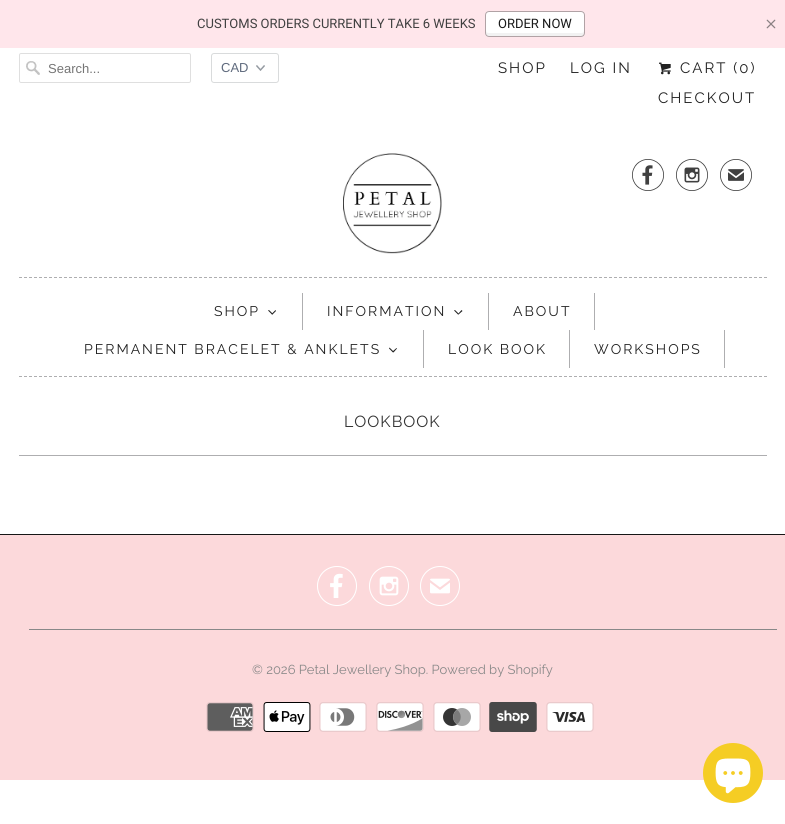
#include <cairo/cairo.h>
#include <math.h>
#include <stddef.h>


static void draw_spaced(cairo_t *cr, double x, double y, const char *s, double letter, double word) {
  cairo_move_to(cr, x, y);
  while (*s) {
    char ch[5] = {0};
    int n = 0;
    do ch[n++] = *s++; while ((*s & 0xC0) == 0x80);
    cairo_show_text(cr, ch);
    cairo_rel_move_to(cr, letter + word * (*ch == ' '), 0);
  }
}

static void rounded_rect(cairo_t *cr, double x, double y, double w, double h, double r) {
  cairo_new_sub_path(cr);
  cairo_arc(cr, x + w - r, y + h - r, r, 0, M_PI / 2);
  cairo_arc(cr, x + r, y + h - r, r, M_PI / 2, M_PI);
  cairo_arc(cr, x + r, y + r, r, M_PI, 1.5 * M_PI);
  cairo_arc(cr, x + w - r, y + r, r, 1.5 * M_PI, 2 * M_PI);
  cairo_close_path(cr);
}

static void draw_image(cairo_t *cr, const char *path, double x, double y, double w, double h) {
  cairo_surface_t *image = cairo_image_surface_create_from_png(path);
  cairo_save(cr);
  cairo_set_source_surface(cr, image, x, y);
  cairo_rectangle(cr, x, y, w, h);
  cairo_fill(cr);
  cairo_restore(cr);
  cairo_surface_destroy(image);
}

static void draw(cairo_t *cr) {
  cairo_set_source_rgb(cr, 1, 1, 1);
  cairo_paint(cr);
  cairo_set_source_rgb(cr, 1, 230 / 255.0, 235 / 255.0);
  cairo_rectangle(cr, 0, 0, 785, 48);
  cairo_fill(cr);
  cairo_set_source_rgb(cr, 1, 1, 1);
  rounded_rect(cr, 485, 11, 100, 26, 4);
  cairo_fill(cr);
  cairo_set_source_rgb(cr, 242 / 255.0, 242 / 255.0, 242 / 255.0);
  cairo_new_path(cr);
  cairo_move_to(cr, 486, 30);
  cairo_line_to(cr, 486, 33);
  cairo_curve_to(cr, 486, 35, 487, 36, 489, 36);
  cairo_line_to(cr, 581, 36);
  cairo_curve_to(cr, 583, 36, 584, 35, 584, 33);
  cairo_line_to(cr, 584, 30);
  cairo_curve_to(cr, 584, 32, 583, 33, 581, 33);
  cairo_line_to(cr, 489, 33);
  cairo_curve_to(cr, 487, 33, 486, 32, 486, 30);
  cairo_close_path(cr);
  cairo_fill(cr);
  rounded_rect(cr, 485.5, 11.5, 99, 25, 3.5);
  cairo_set_source_rgb(cr, 177 / 255.0, 162 / 255.0, 165 / 255.0);
  cairo_set_line_width(cr, 1);
  cairo_stroke(cr);
  draw_image(cr, "images/1.png", 766, 19, 10, 10);
  draw_image(cr, "images/2.png", 26, 61, 14, 14);
  rounded_rect(cr, 19.5, 53.5, 171, 29, 1.5);
  cairo_set_source_rgb(cr, 223 / 255.0, 223 / 255.0, 223 / 255.0);
  cairo_stroke(cr);
  draw_image(cr, "images/3.png", 256, 65, 9, 6);
  rounded_rect(cr, 211.5, 53.5, 67, 29, 2.5);
  cairo_set_source_rgb(cr, 217 / 255.0, 219 / 255.0, 220 / 255.0);
  cairo_stroke(cr);
  draw_image(cr, "images/4.png", 659, 62, 12, 13);
  draw_image(cr, "images/5.png", 343, 153, 99, 101);
  draw_image(cr, "images/6.png", 632, 159, 32, 32);
  draw_image(cr, "images/7.png", 676, 159, 32, 32);
  cairo_new_path(cr);
  cairo_move_to(cr, 19, 277.5);
  cairo_line_to(cr, 767, 277.5);
  cairo_set_source_rgb(cr, 174 / 255.0, 174 / 255.0, 176 / 255.0);
  cairo_set_dash(cr, (double[]){3, 2}, 2, 0);
  cairo_stroke(cr);
  cairo_new_path(cr);
  cairo_move_to(cr, 19, 376.5);
  cairo_line_to(cr, 767, 376.5);
  cairo_stroke(cr);
  cairo_rectangle(cr, 302, 293, 1, 37);
  cairo_fill(cr);
  cairo_set_source_rgb(cr, 34 / 255.0, 34 / 255.0, 34 / 255.0);
  cairo_new_path(cr);
  cairo_move_to(cr, 275.5, 310);
  cairo_line_to(cr, 276, 311);
  cairo_line_to(cr, 272.5, 314.5);
  cairo_line_to(cr, 271.5, 314);
  cairo_close_path(cr);
  cairo_fill(cr);
  cairo_new_path(cr);
  cairo_move_to(cr, 269, 310);
  cairo_line_to(cr, 273, 314);
  cairo_line_to(cr, 272, 314.5);
  cairo_line_to(cr, 268, 310.5);
  cairo_close_path(cr);
  cairo_fill(cr);
  cairo_set_source_rgb(cr, 174 / 255.0, 174 / 255.0, 176 / 255.0);
  cairo_rectangle(cr, 488, 293, 1, 37);
  cairo_fill(cr);
  cairo_set_source_rgb(cr, 34 / 255.0, 34 / 255.0, 34 / 255.0);
  cairo_new_path(cr);
  cairo_move_to(cr, 461.5, 310);
  cairo_line_to(cr, 462.5, 311);
  cairo_line_to(cr, 458.5, 314.5);
  cairo_line_to(cr, 458, 314);
  cairo_close_path(cr);
  cairo_fill(cr);
  cairo_new_path(cr);
  cairo_move_to(cr, 455, 310);
  cairo_line_to(cr, 459, 314);
  cairo_line_to(cr, 458, 314.5);
  cairo_line_to(cr, 454, 310.5);
  cairo_close_path(cr);
  cairo_fill(cr);
  cairo_set_source_rgb(cr, 174 / 255.0, 174 / 255.0, 176 / 255.0);
  cairo_rectangle(cr, 594, 293, 1, 37);
  cairo_fill(cr);
  cairo_rectangle(cr, 423, 330, 1, 38);
  cairo_fill(cr);
  cairo_set_source_rgb(cr, 34 / 255.0, 34 / 255.0, 34 / 255.0);
  cairo_new_path(cr);
  cairo_move_to(cr, 396.5, 348);
  cairo_line_to(cr, 397, 348.5);
  cairo_line_to(cr, 393.5, 352.5);
  cairo_line_to(cr, 392.5, 351.5);
  cairo_close_path(cr);
  cairo_fill(cr);
  cairo_new_path(cr);
  cairo_move_to(cr, 389.5, 347.5);
  cairo_line_to(cr, 393.5, 351.5);
  cairo_line_to(cr, 393, 352.5);
  cairo_line_to(cr, 389, 348.5);
  cairo_close_path(cr);
  cairo_fill(cr);
  cairo_set_source_rgb(cr, 174 / 255.0, 174 / 255.0, 176 / 255.0);
  cairo_rectangle(cr, 569, 330, 1, 38);
  cairo_fill(cr);
  cairo_rectangle(cr, 724, 330, 1, 38);
  cairo_fill(cr);
  cairo_rectangle(cr, 19, 455, 748, 1);
  cairo_fill(cr);
  cairo_set_source_rgb(cr, 252 / 255.0, 217 / 255.0, 219 / 255.0);
  cairo_rectangle(cr, 0, 535, 785, 245);
  cairo_fill(cr);
  cairo_set_source_rgb(cr, 22 / 255.0, 22 / 255.0, 22 / 255.0);
  cairo_rectangle(cr, 0, 534, 785, 1);
  cairo_fill(cr);
  draw_image(cr, "images/8.png", 317, 566, 40, 40);
  draw_image(cr, "images/9.png", 369, 566, 40, 40);
  cairo_set_source_rgb(cr, 136 / 255.0, 136 / 255.0, 136 / 255.0);
  cairo_rectangle(cr, 29, 629, 748, 1);
  cairo_fill(cr);
  draw_image(cr, "images/10.png", 206, 702, 48, 30);
  draw_image(cr, "images/11.png", 263, 702, 48, 30);
  draw_image(cr, "images/12.png", 319, 702, 48, 30);
  draw_image(cr, "images/13.png", 376, 702, 48, 30);
  draw_image(cr, "images/14.png", 433, 702, 48, 30);
  draw_image(cr, "images/15.png", 489, 702, 48, 30);
  draw_image(cr, "images/16.png", 546, 702, 48, 30);
  cairo_set_source_rgb(cr, 245 / 255.0, 205 / 255.0, 36 / 255.0);
  cairo_arc(cr, 733, 773, 30, 0, 2 * M_PI);
  cairo_fill(cr);
  draw_image(cr, "images/17.png", 715, 758, 36, 36);
  cairo_select_font_face(cr, "Roboto", CAIRO_FONT_SLANT_NORMAL, CAIRO_FONT_WEIGHT_NORMAL);
  cairo_set_font_size(cr, 13);
  cairo_set_source_rgb(cr, 64 / 255.0, 64 / 255.0, 64 / 255.0);
  cairo_move_to(cr, 197, 28);
  cairo_show_text(cr, "CUSTOMS ORDERS CURRENTLY TAKE 6 WEEKS");
  cairo_set_source_rgb(cr, 26 / 255.0, 26 / 255.0, 26 / 255.0);
  cairo_move_to(cr, 498, 28);
  cairo_show_text(cr, "ORDER NOW");
  cairo_select_font_face(cr, "Liberation Sans", CAIRO_FONT_SLANT_NORMAL, CAIRO_FONT_WEIGHT_NORMAL);
  cairo_set_source_rgb(cr, 117 / 255.0, 117 / 255.0, 117 / 255.0);
  cairo_move_to(cr, 48, 73);
  cairo_show_text(cr, "Search...");
  cairo_set_source_rgb(cr, 95 / 255.0, 106 / 255.0, 125 / 255.0);
  cairo_move_to(cr, 221, 72);
  cairo_show_text(cr, "CAD");
  cairo_select_font_face(cr, "Raleway Thin", CAIRO_FONT_SLANT_NORMAL, CAIRO_FONT_WEIGHT_NORMAL);
  cairo_set_font_size(cr, 15);
  cairo_set_source_rgb(cr, 34 / 255.0, 34 / 255.0, 34 / 255.0);
  draw_spaced(cr, 498, 73, "SHOP", 2, 0);
  draw_spaced(cr, 570, 73, "LOG IN", 2, 0);
  draw_spaced(cr, 680, 73, "CART (0)", 2, 0);
  draw_spaced(cr, 658, 103, "CHECKOUT", 2, 0);
  cairo_select_font_face(cr, "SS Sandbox", CAIRO_FONT_SLANT_NORMAL, CAIRO_FONT_WEIGHT_NORMAL);
  cairo_set_font_size(cr, 32);
  cairo_set_source_rgb(cr, 64 / 255.0, 64 / 255.0, 64 / 255.0);
  cairo_move_to(cr, 720, 191);
  cairo_show_text(cr, "✉");
  cairo_select_font_face(cr, "Raleway Thin", CAIRO_FONT_SLANT_NORMAL, CAIRO_FONT_WEIGHT_NORMAL);
  cairo_set_font_size(cr, 14);
  cairo_set_source_rgb(cr, 34 / 255.0, 34 / 255.0, 34 / 255.0);
  draw_spaced(cr, 214, 316, "SHOP", 2, 0);
  draw_spaced(cr, 327, 316, "INFORMATION", 2, 0);
  draw_spaced(cr, 513, 316, "ABOUT", 2, 0);
  draw_spaced(cr, 84, 354, "PERMANENT BRACELET & ANKLETS", 2, 0);
  draw_spaced(cr, 448, 354, "LOOK BOOK", 2, 0);
  draw_spaced(cr, 594, 354, "WORKSHOPS", 2, 0);
  cairo_set_font_size(cr, 16);
  cairo_set_source_rgb(cr, 51 / 255.0, 51 / 255.0, 51 / 255.0);
  draw_spaced(cr, 344, 427, "LOOKBOOK", 1, 0);
  cairo_select_font_face(cr, "SS Sandbox", CAIRO_FONT_SLANT_NORMAL, CAIRO_FONT_WEIGHT_NORMAL);
  cairo_set_font_size(cr, 40);
  cairo_set_source_rgb(cr, 1, 1, 1);
  cairo_move_to(cr, 420, 606);
  cairo_show_text(cr, "✉");
  cairo_select_font_face(cr, "Raleway Thin", CAIRO_FONT_SLANT_NORMAL, CAIRO_FONT_WEIGHT_NORMAL);
  cairo_set_font_size(cr, 13);
  cairo_set_source_rgb(cr, 136 / 255.0, 136 / 255.0, 136 / 255.0);
  cairo_move_to(cr, 252, 674);
  cairo_show_text(cr, "© 2026 Petal Jewellery Shop. Powered by Shopify");
}

int main(void) {
  cairo_surface_t *surface = cairo_image_surface_create(CAIRO_FORMAT_RGB24, 785, 824);
  cairo_t *cr = cairo_create(surface);
  cairo_font_options_t *options = cairo_font_options_create();
  cairo_font_options_set_hint_metrics(options, CAIRO_HINT_METRICS_OFF);
  cairo_font_options_set_hint_style(options, CAIRO_HINT_STYLE_NONE);
  cairo_set_font_options(cr, options);
  cairo_set_miter_limit(cr, 4);
  draw(cr);
  cairo_surface_write_to_png(surface, "out.png");
  cairo_font_options_destroy(options);
  cairo_destroy(cr);
  cairo_surface_destroy(surface);
  return 0;
}
